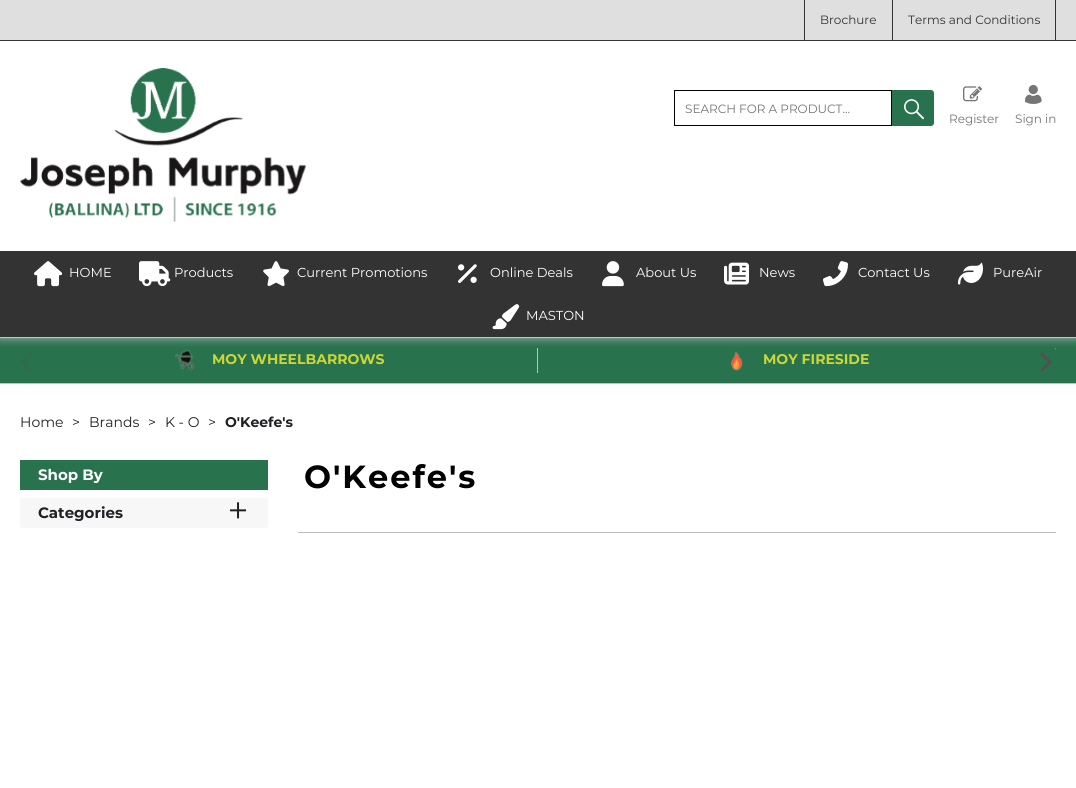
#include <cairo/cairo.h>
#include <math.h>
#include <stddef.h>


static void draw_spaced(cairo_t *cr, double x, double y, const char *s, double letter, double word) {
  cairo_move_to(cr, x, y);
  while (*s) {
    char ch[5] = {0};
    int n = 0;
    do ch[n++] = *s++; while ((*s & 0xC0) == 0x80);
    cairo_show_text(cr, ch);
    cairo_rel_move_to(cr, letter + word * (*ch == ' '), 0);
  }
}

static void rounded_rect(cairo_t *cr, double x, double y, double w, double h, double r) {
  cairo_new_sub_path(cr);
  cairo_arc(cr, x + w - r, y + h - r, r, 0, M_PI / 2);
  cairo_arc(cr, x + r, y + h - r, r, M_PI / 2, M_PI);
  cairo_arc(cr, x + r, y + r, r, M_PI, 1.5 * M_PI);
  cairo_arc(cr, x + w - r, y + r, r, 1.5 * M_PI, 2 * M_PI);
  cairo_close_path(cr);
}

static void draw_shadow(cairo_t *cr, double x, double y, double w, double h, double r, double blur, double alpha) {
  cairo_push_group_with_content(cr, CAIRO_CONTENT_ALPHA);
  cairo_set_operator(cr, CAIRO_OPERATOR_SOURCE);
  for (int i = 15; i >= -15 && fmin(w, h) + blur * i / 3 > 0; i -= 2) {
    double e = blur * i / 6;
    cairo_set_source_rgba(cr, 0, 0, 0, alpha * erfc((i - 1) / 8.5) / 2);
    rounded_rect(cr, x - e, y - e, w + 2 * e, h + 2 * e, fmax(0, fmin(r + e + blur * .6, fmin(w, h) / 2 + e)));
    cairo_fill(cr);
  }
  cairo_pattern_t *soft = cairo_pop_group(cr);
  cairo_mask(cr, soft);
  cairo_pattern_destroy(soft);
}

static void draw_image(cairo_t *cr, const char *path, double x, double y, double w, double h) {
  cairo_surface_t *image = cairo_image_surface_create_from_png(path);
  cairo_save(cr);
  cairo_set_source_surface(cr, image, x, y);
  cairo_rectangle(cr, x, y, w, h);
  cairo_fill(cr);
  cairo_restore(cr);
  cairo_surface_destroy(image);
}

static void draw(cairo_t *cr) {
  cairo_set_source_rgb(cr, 1, 1, 1);
  cairo_paint(cr);
  cairo_set_source_rgb(cr, 40 / 255.0, 114 / 255.0, 77 / 255.0);
  cairo_rectangle(cr, 0, 338, 1076, 45);
  cairo_fill(cr);
  cairo_set_source_rgb(cr, 203 / 255.0, 214 / 255.0, 55 / 255.0);
  cairo_rectangle(cr, 0, 337, 1076, 1);
  cairo_fill(cr);
  cairo_set_source_rgb(cr, 48 / 255.0, 107 / 255.0, 78 / 255.0);
  cairo_new_path(cr);
  cairo_move_to(cr, 32, 354.5);
  cairo_line_to(cr, 30, 352);
  cairo_line_to(cr, 20, 362);
  cairo_line_to(cr, 30, 372);
  cairo_line_to(cr, 32, 370);
  cairo_line_to(cr, 24.5, 362);
  cairo_close_path(cr);
  cairo_fill(cr);
  cairo_set_source_rgb(cr, 203 / 255.0, 214 / 255.0, 55 / 255.0);
  cairo_rectangle(cr, 1055, 348, 1, 25);
  cairo_fill(cr);
  cairo_set_source_rgb(cr, 40 / 255.0, 114 / 255.0, 77 / 255.0);
  rounded_rect(cr, 1040, 347, 16, 28, 3);
  cairo_fill(cr);
  cairo_set_source_rgb(cr, 81 / 255.0, 81 / 255.0, 81 / 255.0);
  cairo_new_path(cr);
  cairo_move_to(cr, 1040, 370);
  cairo_line_to(cr, 1042, 372);
  cairo_line_to(cr, 1052, 362);
  cairo_line_to(cr, 1042, 352);
  cairo_line_to(cr, 1040, 354.5);
  cairo_line_to(cr, 1048, 362);
  cairo_close_path(cr);
  cairo_fill(cr);
  cairo_set_source_rgb(cr, 203 / 255.0, 214 / 255.0, 55 / 255.0);
  cairo_rectangle(cr, 537, 348, 1, 25);
  cairo_fill(cr);
  draw_image(cr, "images/14.png", 174, 349, 21, 22);
  draw_image(cr, "images/15.png", 731, 351, 12, 20);
  cairo_save(cr);
  cairo_rectangle(cr, 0, 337, 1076, 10);
  cairo_clip(cr);
  cairo_set_source_rgb(cr, 204 / 255.0, 204 / 255.0, 204 / 255.0);
  draw_shadow(cr, 0, 0, 1076, 337, 0, 5, 1);
  cairo_restore(cr);
  cairo_set_source_rgb(cr, 223 / 255.0, 223 / 255.0, 223 / 255.0);
  cairo_rectangle(cr, 0, 0, 1076, 40);
  cairo_fill(cr);
  cairo_set_source_rgb(cr, 51 / 255.0, 51 / 255.0, 51 / 255.0);
  cairo_rectangle(cr, 0, 40, 1076, 1);
  cairo_fill(cr);
  cairo_rectangle(cr, 1055, 0, 1, 40);
  cairo_fill(cr);
  cairo_rectangle(cr, 804, 0, 1, 40);
  cairo_fill(cr);
  cairo_rectangle(cr, 892, 0, 1, 40);
  cairo_fill(cr);
  draw_image(cr, "images/1.png", 20, 68, 286, 154);
  cairo_rectangle(cr, 674.5, 90.5, 217, 35);
  cairo_set_source_rgb(cr, 0, 0, 0);
  cairo_set_line_width(cr, 1);
  cairo_stroke(cr);
  cairo_set_source_rgb(cr, 40 / 255.0, 114 / 255.0, 77 / 255.0);
  cairo_new_path(cr);
  cairo_move_to(cr, 892, 90);
  cairo_line_to(cr, 931, 90);
  cairo_curve_to(cr, 932.5, 90, 934, 91.5, 934, 93);
  cairo_line_to(cr, 934, 123);
  cairo_curve_to(cr, 934, 124.5, 932.5, 126, 931, 126);
  cairo_line_to(cr, 892, 126);
  cairo_close_path(cr);
  cairo_fill(cr);
  draw_image(cr, "images/2.png", 904, 99, 20, 21);
  draw_image(cr, "images/3.png", 963, 86, 19, 16);
  draw_image(cr, "images/4.png", 1025, 84, 17, 20);
  cairo_set_source_rgb(cr, 51 / 255.0, 51 / 255.0, 51 / 255.0);
  cairo_rectangle(cr, 0, 251, 1076, 86);
  cairo_fill(cr);
  draw_image(cr, "images/5.png", 34, 261, 29, 26);
  draw_image(cr, "images/6.png", 139, 261, 32, 26);
  draw_image(cr, "images/7.png", 263, 261, 26, 26);
  draw_image(cr, "images/8.png", 458, 264, 19, 19);
  draw_image(cr, "images/9.png", 602, 261, 22, 26);
  draw_image(cr, "images/10.png", 724, 262, 25, 23);
  draw_image(cr, "images/11.png", 823, 261, 25, 26);
  draw_image(cr, "images/12.png", 958, 262, 25, 23);
  draw_image(cr, "images/13.png", 492, 304, 28, 26);
  cairo_set_source_rgb(cr, 203 / 255.0, 214 / 255.0, 55 / 255.0);
  cairo_rectangle(cr, 0, 383, 1076, 1);
  cairo_fill(cr);
  cairo_set_source_rgb(cr, 40 / 255.0, 114 / 255.0, 77 / 255.0);
  cairo_rectangle(cr, 20, 460, 248, 30);
  cairo_fill(cr);
  cairo_set_source_rgb(cr, 247 / 255.0, 247 / 255.0, 247 / 255.0);
  rounded_rect(cr, 20, 498, 248, 30, 3);
  cairo_fill(cr);
  draw_image(cr, "images/16.png", 230, 502, 17, 17);
  cairo_set_source_rgb(cr, 189 / 255.0, 189 / 255.0, 189 / 255.0);
  cairo_rectangle(cr, 298, 532, 758, 1);
  cairo_fill(cr);
  cairo_select_font_face(cr, "Montserrat", CAIRO_FONT_SLANT_NORMAL, CAIRO_FONT_WEIGHT_NORMAL);
  cairo_set_font_size(cr, 12);
  cairo_set_source_rgb(cr, 51 / 255.0, 51 / 255.0, 51 / 255.0);
  cairo_move_to(cr, 820, 24);
  cairo_show_text(cr, "Brochure");
  cairo_move_to(cr, 908, 24);
  cairo_show_text(cr, "Terms and Conditions");
  cairo_set_source_rgb(cr, 117 / 255.0, 117 / 255.0, 117 / 255.0);
  cairo_move_to(cr, 685, 113);
  cairo_show_text(cr, "SEARCH FOR A PRODUCT...");
  cairo_move_to(cr, 949, 123);
  cairo_show_text(cr, "Register");
  cairo_move_to(cr, 1015, 123);
  cairo_show_text(cr, "Sign in");
  cairo_set_font_size(cr, 13);
  cairo_set_source_rgb(cr, 1, 1, 1);
  cairo_move_to(cr, 69, 277);
  cairo_show_text(cr, "HOME");
  cairo_move_to(cr, 174, 277);
  cairo_show_text(cr, "Products");
  cairo_move_to(cr, 297, 277);
  cairo_show_text(cr, "Current Promotions");
  cairo_move_to(cr, 490, 277);
  cairo_show_text(cr, "Online Deals");
  cairo_move_to(cr, 636, 277);
  cairo_show_text(cr, "About Us");
  cairo_move_to(cr, 759, 277);
  cairo_show_text(cr, "News");
  cairo_move_to(cr, 858, 277);
  cairo_show_text(cr, "Contact Us");
  cairo_move_to(cr, 993, 277);
  cairo_show_text(cr, "PureAir");
  cairo_move_to(cr, 526, 320);
  cairo_show_text(cr, "MASTON");
  cairo_select_font_face(cr, "Montserrat", CAIRO_FONT_SLANT_NORMAL, CAIRO_FONT_WEIGHT_BOLD);
  cairo_set_font_size(cr, 14);
  cairo_set_source_rgb(cr, 203 / 255.0, 214 / 255.0, 55 / 255.0);
  cairo_move_to(cr, 212, 364);
  cairo_show_text(cr, "MOY WHEELBARROWS");
  cairo_move_to(cr, 763, 364);
  cairo_show_text(cr, "MOY FIRESIDE");
  cairo_select_font_face(cr, "Montserrat", CAIRO_FONT_SLANT_NORMAL, CAIRO_FONT_WEIGHT_NORMAL);
  cairo_set_source_rgb(cr, 32 / 255.0, 33 / 255.0, 37 / 255.0);
  cairo_move_to(cr, 20, 427);
  cairo_show_text(cr, "Home");
  cairo_move_to(cr, 72, 427);
  cairo_show_text(cr, ">");
  cairo_move_to(cr, 89, 427);
  cairo_show_text(cr, "Brands");
  cairo_move_to(cr, 148, 427);
  cairo_show_text(cr, ">");
  cairo_move_to(cr, 165, 427);
  cairo_show_text(cr, "K - O");
  cairo_move_to(cr, 208, 427);
  cairo_show_text(cr, ">");
  cairo_select_font_face(cr, "Montserrat", CAIRO_FONT_SLANT_NORMAL, CAIRO_FONT_WEIGHT_BOLD);
  cairo_move_to(cr, 225, 427);
  cairo_show_text(cr, "O'Keefe's");
  cairo_set_font_size(cr, 15);
  cairo_set_source_rgb(cr, 1, 1, 1);
  cairo_move_to(cr, 38, 480);
  cairo_show_text(cr, "Shop By");
  cairo_set_source_rgb(cr, 32 / 255.0, 33 / 255.0, 37 / 255.0);
  cairo_move_to(cr, 38, 518);
  cairo_show_text(cr, "Categories");
  cairo_set_font_size(cr, 32);
  cairo_set_source_rgb(cr, 0, 0, 0);
  draw_spaced(cr, 304, 488, "O'Keefe's", 2, 0);
}

int main(void) {
  cairo_surface_t *surface = cairo_image_surface_create(CAIRO_FORMAT_RGB24, 1076, 788);
  cairo_t *cr = cairo_create(surface);
  cairo_font_options_t *options = cairo_font_options_create();
  cairo_font_options_set_hint_metrics(options, CAIRO_HINT_METRICS_OFF);
  cairo_font_options_set_hint_style(options, CAIRO_HINT_STYLE_NONE);
  cairo_set_font_options(cr, options);
  cairo_set_miter_limit(cr, 4);
  draw(cr);
  cairo_surface_write_to_png(surface, "out.png");
  cairo_font_options_destroy(options);
  cairo_destroy(cr);
  cairo_surface_destroy(surface);
  return 0;
}
